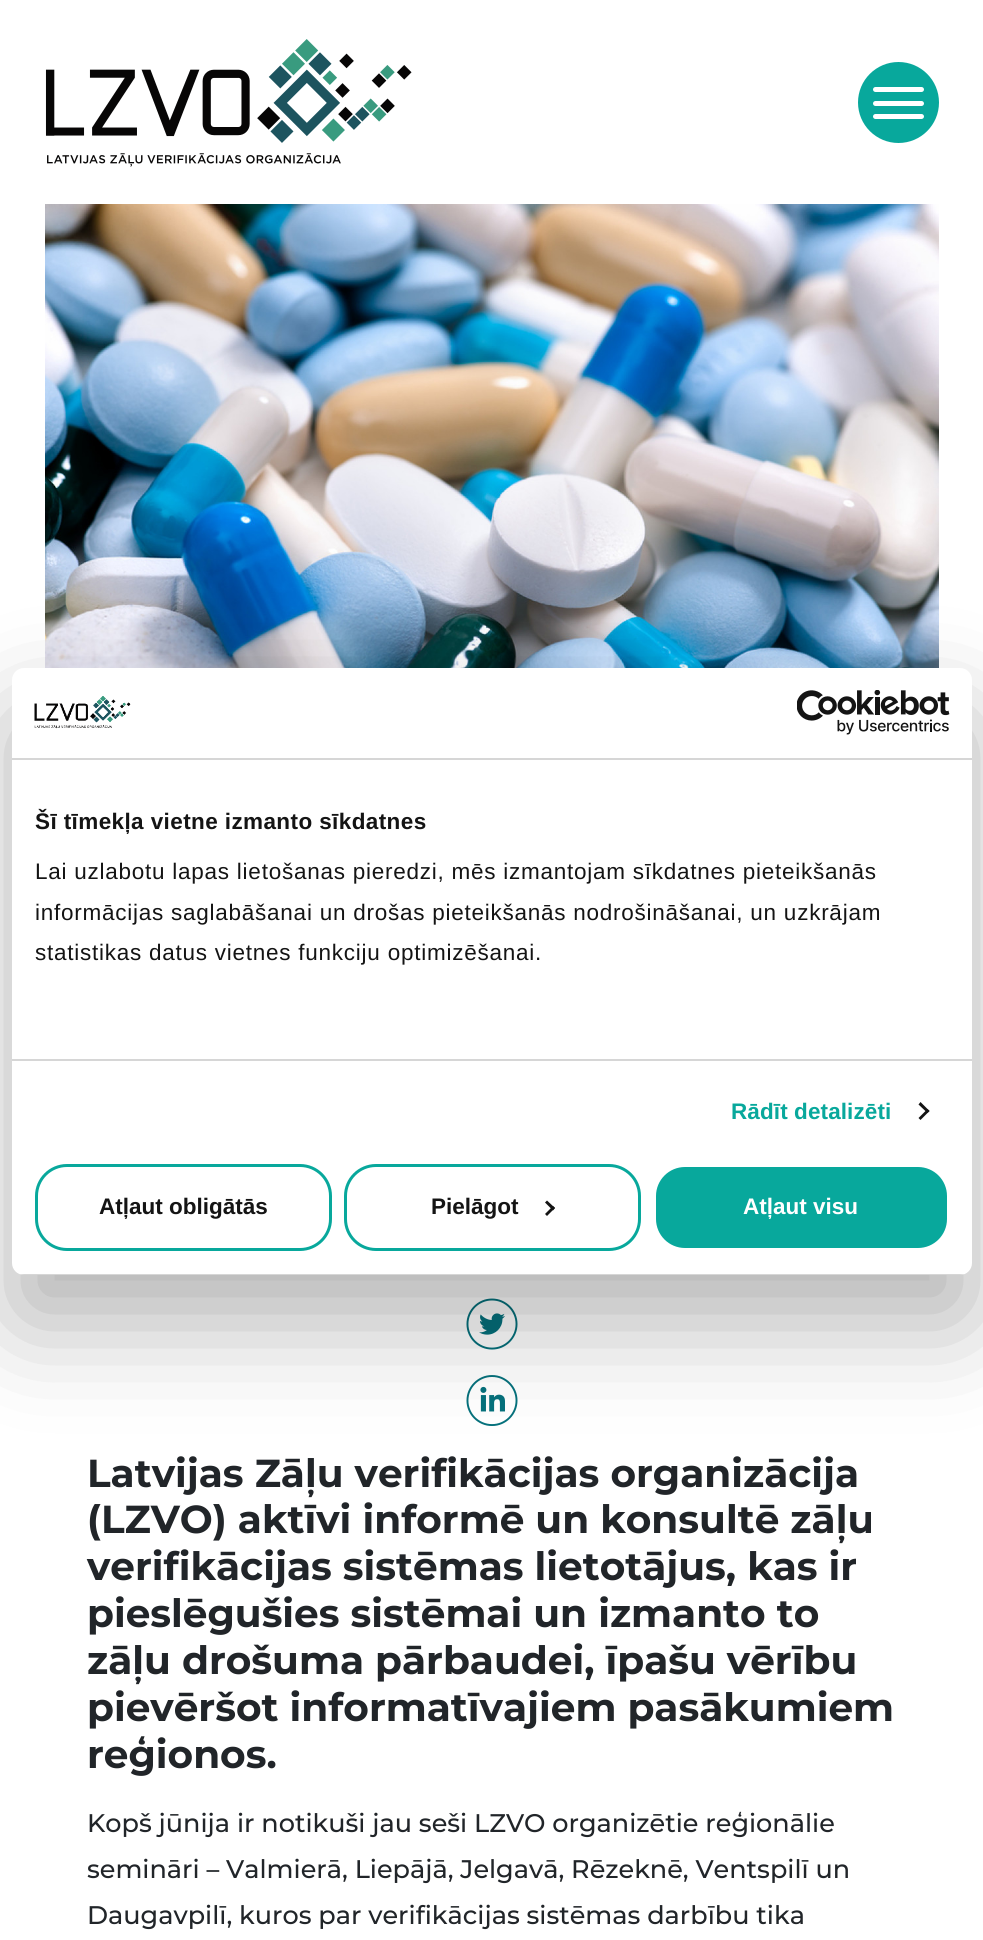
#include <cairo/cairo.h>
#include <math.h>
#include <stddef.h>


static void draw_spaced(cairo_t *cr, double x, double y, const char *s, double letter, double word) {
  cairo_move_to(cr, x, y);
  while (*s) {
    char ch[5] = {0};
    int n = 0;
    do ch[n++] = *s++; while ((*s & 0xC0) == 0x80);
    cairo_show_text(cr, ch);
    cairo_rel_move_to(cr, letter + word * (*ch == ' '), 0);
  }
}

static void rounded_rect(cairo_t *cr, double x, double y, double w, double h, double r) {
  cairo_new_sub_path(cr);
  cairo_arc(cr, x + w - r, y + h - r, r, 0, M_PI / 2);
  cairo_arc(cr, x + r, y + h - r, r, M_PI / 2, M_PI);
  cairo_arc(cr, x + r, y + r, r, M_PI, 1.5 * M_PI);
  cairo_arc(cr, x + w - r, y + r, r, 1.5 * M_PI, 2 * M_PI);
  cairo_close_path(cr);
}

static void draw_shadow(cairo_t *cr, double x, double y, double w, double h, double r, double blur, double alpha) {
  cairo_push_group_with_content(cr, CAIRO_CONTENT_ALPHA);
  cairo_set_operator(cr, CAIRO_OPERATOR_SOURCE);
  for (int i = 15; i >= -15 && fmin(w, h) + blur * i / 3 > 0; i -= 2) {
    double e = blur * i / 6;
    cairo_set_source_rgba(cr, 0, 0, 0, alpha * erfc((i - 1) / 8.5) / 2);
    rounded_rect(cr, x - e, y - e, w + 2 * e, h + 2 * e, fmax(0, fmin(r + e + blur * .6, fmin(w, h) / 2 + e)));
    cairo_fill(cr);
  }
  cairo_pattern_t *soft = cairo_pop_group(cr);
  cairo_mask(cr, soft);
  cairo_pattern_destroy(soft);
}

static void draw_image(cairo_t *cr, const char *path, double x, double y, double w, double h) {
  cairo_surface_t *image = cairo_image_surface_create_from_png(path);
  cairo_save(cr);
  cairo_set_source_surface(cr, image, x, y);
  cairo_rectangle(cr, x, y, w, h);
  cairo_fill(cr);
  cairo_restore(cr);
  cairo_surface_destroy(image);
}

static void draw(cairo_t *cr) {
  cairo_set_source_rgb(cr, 1, 1, 1);
  cairo_paint(cr);
  draw_image(cr, "images/1.png", 45, 39, 367, 128);
  cairo_set_source_rgb(cr, 8 / 255.0, 168 / 255.0, 156 / 255.0);
  cairo_arc(cr, 898.5, 102.5, 40.5, 0, 2 * M_PI);
  cairo_fill(cr);
  cairo_set_source_rgb(cr, 1, 1, 1);
  rounded_rect(cr, 873, 101, 51, 5, 2.5);
  cairo_fill(cr);
  rounded_rect(cr, 873, 87, 51, 5, 2.5);
  cairo_fill(cr);
  rounded_rect(cr, 873, 114, 51, 5, 2.5);
  cairo_fill(cr);
  draw_image(cr, "images/4.png", 45, 204, 894, 464);
  draw_image(cr, "images/5.png", 466, 1298, 52, 52);
  draw_image(cr, "images/6.png", 466, 1375, 52, 51);
  cairo_set_source_rgb(cr, 0, 0, 0);
  draw_shadow(cr, 12, 716, 960, 607, 12, 51, 0.3);
  cairo_set_source_rgb(cr, 1, 1, 1);
  rounded_rect(cr, 12, 668, 960, 607, 12);
  cairo_fill(cr);
  cairo_set_source_rgb(cr, 214 / 255.0, 214 / 255.0, 214 / 255.0);
  cairo_rectangle(cr, 12, 758, 960, 2);
  cairo_fill(cr);
  draw_image(cr, "images/2.png", 34, 696, 97, 33);
  draw_image(cr, "images/3.png", 797, 690, 153, 45);
  cairo_rectangle(cr, 12, 1059, 960, 2);
  cairo_fill(cr);
  cairo_set_source_rgb(cr, 20 / 255.0, 20 / 255.0, 20 / 255.0);
  cairo_new_path(cr);
  cairo_move_to(cr, 920.5, 1102);
  cairo_line_to(cr, 929.5, 1111);
  cairo_line_to(cr, 927.5, 1113);
  cairo_line_to(cr, 918.5, 1104.5);
  cairo_close_path(cr);
  cairo_fill(cr);
  cairo_new_path(cr);
  cairo_move_to(cr, 927.5, 1109);
  cairo_line_to(cr, 929.5, 1111);
  cairo_line_to(cr, 920.5, 1120);
  cairo_line_to(cr, 918.5, 1118);
  cairo_close_path(cr);
  cairo_fill(cr);
  cairo_save(cr);
  rounded_rect(cr, 12, 668, 960, 607, 12);
  cairo_clip(cr);
  cairo_set_source_rgb(cr, 214 / 255.0, 214 / 255.0, 214 / 255.0);
  cairo_rectangle(cr, 12, 1274, 960, 1);
  cairo_fill(cr);
  cairo_restore(cr);
  rounded_rect(cr, 36.5, 1165.5, 294, 84, 30.5);
  cairo_set_source_rgb(cr, 8 / 255.0, 168 / 255.0, 156 / 255.0);
  cairo_set_line_width(cr, 3);
  cairo_stroke(cr);
  rounded_rect(cr, 345.5, 1165.5, 294, 84, 30.5);
  cairo_stroke(cr);
  cairo_set_source_rgb(cr, 20 / 255.0, 20 / 255.0, 20 / 255.0);
  cairo_new_path(cr);
  cairo_move_to(cr, 547, 1200.5);
  cairo_line_to(cr, 555, 1208);
  cairo_line_to(cr, 553, 1210.5);
  cairo_line_to(cr, 545, 1202.5);
  cairo_close_path(cr);
  cairo_fill(cr);
  cairo_new_path(cr);
  cairo_move_to(cr, 553, 1206);
  cairo_line_to(cr, 555, 1208);
  cairo_line_to(cr, 547, 1216);
  cairo_line_to(cr, 545, 1214);
  cairo_close_path(cr);
  cairo_fill(cr);
  cairo_set_source_rgb(cr, 8 / 255.0, 168 / 255.0, 156 / 255.0);
  rounded_rect(cr, 654.5, 1165.5, 294, 84, 30.5);
  cairo_fill_preserve(cr);
  cairo_set_source_rgb(cr, 1, 1, 1);
  cairo_stroke(cr);
  cairo_select_font_face(cr, "Liberation Sans", CAIRO_FONT_SLANT_NORMAL, CAIRO_FONT_WEIGHT_BOLD);
  cairo_set_font_size(cr, 22.5);
  cairo_set_source_rgb(cr, 20 / 255.0, 20 / 255.0, 20 / 255.0);
  draw_spaced(cr, 35, 829, "Šī tīmekļa vietne izmanto sīkdatnes", 0.4, 0);
  cairo_select_font_face(cr, "Liberation Sans", CAIRO_FONT_SLANT_NORMAL, CAIRO_FONT_WEIGHT_NORMAL);
  draw_spaced(cr, 35, 879, "Lai uzlabotu lapas lietošanas pieredzi, mēs izmantojam sīkdatnes pieteikšanās", 0.75, 0);
  draw_spaced(cr, 35, 920, "informācijas saglabāšanai un drošas pieteikšanās nodrošināšanai, un uzkrājam", 0.75, 0);
  draw_spaced(cr, 35, 960, "statistikas datus vietnes funkciju optimizēšanai.", 0.75, 0);
  cairo_select_font_face(cr, "Liberation Sans", CAIRO_FONT_SLANT_NORMAL, CAIRO_FONT_WEIGHT_BOLD);
  cairo_set_source_rgb(cr, 8 / 255.0, 168 / 255.0, 156 / 255.0);
  draw_spaced(cr, 731, 1119, "Rādīt detalizēti", 0.1, 0);
  cairo_set_source_rgb(cr, 20 / 255.0, 20 / 255.0, 20 / 255.0);
  cairo_move_to(cr, 99, 1214);
  cairo_show_text(cr, "Atļaut obligātās");
  cairo_move_to(cr, 431, 1214);
  cairo_show_text(cr, "Pielāgot");
  cairo_set_source_rgb(cr, 1, 1, 1);
  cairo_move_to(cr, 743, 1214);
  cairo_show_text(cr, "Atļaut visu");
  cairo_select_font_face(cr, "Montserrat", CAIRO_FONT_SLANT_NORMAL, CAIRO_FONT_WEIGHT_BOLD);
  cairo_set_font_size(cr, 39.05);
  cairo_set_source_rgb(cr, 33 / 255.0, 37 / 255.0, 41 / 255.0);
  cairo_move_to(cr, 87, 1487);
  cairo_show_text(cr, "Latvijas Zāļu verifikācijas organizācija");
  cairo_move_to(cr, 87, 1533);
  cairo_show_text(cr, "(LZVO) aktīvi informē un konsultē zāļu");
  cairo_move_to(cr, 87, 1580);
  cairo_show_text(cr, "verifikācijas sistēmas lietotājus, kas ir");
  cairo_move_to(cr, 87, 1627);
  cairo_show_text(cr, "pieslēgušies sistēmai un izmanto to");
  cairo_move_to(cr, 87, 1674);
  cairo_show_text(cr, "zāļu drošuma pārbaudei, īpašu vērību");
  cairo_move_to(cr, 87, 1721);
  cairo_show_text(cr, "pievēršot informatīvajiem pasākumiem");
  cairo_move_to(cr, 87, 1768);
  cairo_show_text(cr, "reģionos.");
  cairo_select_font_face(cr, "Montserrat Medium", CAIRO_FONT_SLANT_NORMAL, CAIRO_FONT_WEIGHT_NORMAL);
  cairo_set_font_size(cr, 25.5);
  cairo_move_to(cr, 87, 1832);
  cairo_show_text(cr, "Kopš jūnija ir notikuši jau seši LZVO organizētie reģionālie");
  cairo_move_to(cr, 87, 1878);
  cairo_show_text(cr, "semināri – Valmierā, Liepājā, Jelgavā, Rēzeknē, Ventspilī un");
  cairo_move_to(cr, 87, 1924);
  cairo_show_text(cr, "Daugavpilī, kuros par verifikācijas sistēmas darbību tika");
}

int main(void) {
  cairo_surface_t *surface = cairo_image_surface_create(CAIRO_FORMAT_RGB24, 983, 1940);
  cairo_t *cr = cairo_create(surface);
  cairo_font_options_t *options = cairo_font_options_create();
  cairo_font_options_set_hint_metrics(options, CAIRO_HINT_METRICS_OFF);
  cairo_font_options_set_hint_style(options, CAIRO_HINT_STYLE_NONE);
  cairo_set_font_options(cr, options);
  cairo_set_miter_limit(cr, 4);
  draw(cr);
  cairo_surface_write_to_png(surface, "out.png");
  cairo_font_options_destroy(options);
  cairo_destroy(cr);
  cairo_surface_destroy(surface);
  return 0;
}
